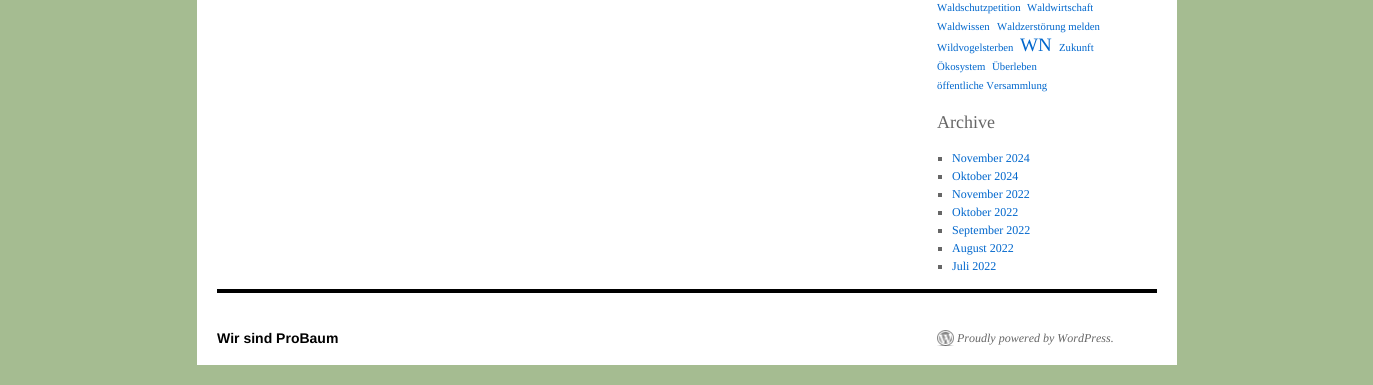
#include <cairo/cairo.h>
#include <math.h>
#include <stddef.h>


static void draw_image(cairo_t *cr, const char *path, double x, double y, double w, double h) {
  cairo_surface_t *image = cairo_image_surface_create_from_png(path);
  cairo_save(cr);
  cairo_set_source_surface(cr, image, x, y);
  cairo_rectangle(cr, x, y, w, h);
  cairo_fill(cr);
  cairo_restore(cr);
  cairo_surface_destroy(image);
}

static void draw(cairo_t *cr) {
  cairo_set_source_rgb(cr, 165 / 255.0, 188 / 255.0, 145 / 255.0);
  cairo_paint(cr);
  cairo_set_source_rgb(cr, 1, 1, 1);
  cairo_rectangle(cr, 197, 0, 980, 365);
  cairo_fill(cr);
  cairo_set_source_rgb(cr, 102 / 255.0, 102 / 255.0, 102 / 255.0);
  cairo_rectangle(cr, 938, 157, 4, 4);
  cairo_fill(cr);
  cairo_rectangle(cr, 938, 175, 4, 4);
  cairo_fill(cr);
  cairo_rectangle(cr, 938, 193, 4, 4);
  cairo_fill(cr);
  cairo_rectangle(cr, 938, 211, 4, 4);
  cairo_fill(cr);
  cairo_rectangle(cr, 938, 229, 4, 4);
  cairo_fill(cr);
  cairo_rectangle(cr, 938, 247, 4, 4);
  cairo_fill(cr);
  cairo_rectangle(cr, 938, 265, 4, 4);
  cairo_fill(cr);
  cairo_set_source_rgb(cr, 0, 0, 0);
  cairo_rectangle(cr, 217, 289, 940, 4);
  cairo_fill(cr);
  draw_image(cr, "images/1.png", 937, 330, 17, 16);
  cairo_select_font_face(cr, "Liberation Serif", CAIRO_FONT_SLANT_NORMAL, CAIRO_FONT_WEIGHT_NORMAL);
  cairo_set_font_size(cr, 10.75);
  cairo_set_source_rgb(cr, 0, 102 / 255.0, 204 / 255.0);
  cairo_move_to(cr, 937, 11);
  cairo_show_text(cr, "Waldschutzpetition");
  cairo_move_to(cr, 1027, 11);
  cairo_show_text(cr, "Waldwirtschaft");
  cairo_move_to(cr, 937, 30);
  cairo_show_text(cr, "Waldwissen");
  cairo_move_to(cr, 997, 30);
  cairo_show_text(cr, "Waldzerstörung melden");
  cairo_move_to(cr, 937, 51);
  cairo_show_text(cr, "Wildvogelsterben");
  cairo_set_font_size(cr, 19);
  cairo_move_to(cr, 1020, 51);
  cairo_show_text(cr, "WN");
  cairo_set_font_size(cr, 10.75);
  cairo_move_to(cr, 1059, 51);
  cairo_show_text(cr, "Zukunft");
  cairo_move_to(cr, 937, 70);
  cairo_show_text(cr, "Ökosystem");
  cairo_move_to(cr, 992, 70);
  cairo_show_text(cr, "Überleben");
  cairo_move_to(cr, 937, 89);
  cairo_show_text(cr, "öffentliche Versammlung");
  cairo_set_font_size(cr, 18);
  cairo_set_source_rgb(cr, 102 / 255.0, 102 / 255.0, 102 / 255.0);
  cairo_move_to(cr, 937, 128);
  cairo_show_text(cr, "Archive");
  cairo_set_font_size(cr, 12);
  cairo_set_source_rgb(cr, 0, 102 / 255.0, 204 / 255.0);
  cairo_move_to(cr, 952, 162);
  cairo_show_text(cr, "November 2024");
  cairo_move_to(cr, 952, 180);
  cairo_show_text(cr, "Oktober 2024");
  cairo_move_to(cr, 952, 198);
  cairo_show_text(cr, "November 2022");
  cairo_move_to(cr, 952, 216);
  cairo_show_text(cr, "Oktober 2022");
  cairo_move_to(cr, 952, 234);
  cairo_show_text(cr, "September 2022");
  cairo_move_to(cr, 952, 252);
  cairo_show_text(cr, "August 2022");
  cairo_move_to(cr, 952, 270);
  cairo_show_text(cr, "Juli 2022");
  cairo_select_font_face(cr, "Liberation Sans", CAIRO_FONT_SLANT_NORMAL, CAIRO_FONT_WEIGHT_BOLD);
  cairo_set_font_size(cr, 14);
  cairo_set_source_rgb(cr, 0, 0, 0);
  cairo_move_to(cr, 217, 343);
  cairo_show_text(cr, "Wir sind ProBaum");
  cairo_select_font_face(cr, "Liberation Serif", CAIRO_FONT_SLANT_ITALIC, CAIRO_FONT_WEIGHT_NORMAL);
  cairo_set_font_size(cr, 12);
  cairo_set_source_rgb(cr, 102 / 255.0, 102 / 255.0, 102 / 255.0);
  cairo_move_to(cr, 957, 342);
  cairo_show_text(cr, "Proudly powered by WordPress.");
}

int main(void) {
  cairo_surface_t *surface = cairo_image_surface_create(CAIRO_FORMAT_RGB24, 1373, 385);
  cairo_t *cr = cairo_create(surface);
  cairo_font_options_t *options = cairo_font_options_create();
  cairo_font_options_set_hint_metrics(options, CAIRO_HINT_METRICS_OFF);
  cairo_font_options_set_hint_style(options, CAIRO_HINT_STYLE_NONE);
  cairo_set_font_options(cr, options);
  cairo_set_miter_limit(cr, 4);
  draw(cr);
  cairo_surface_write_to_png(surface, "out.png");
  cairo_font_options_destroy(options);
  cairo_destroy(cr);
  cairo_surface_destroy(surface);
  return 0;
}
